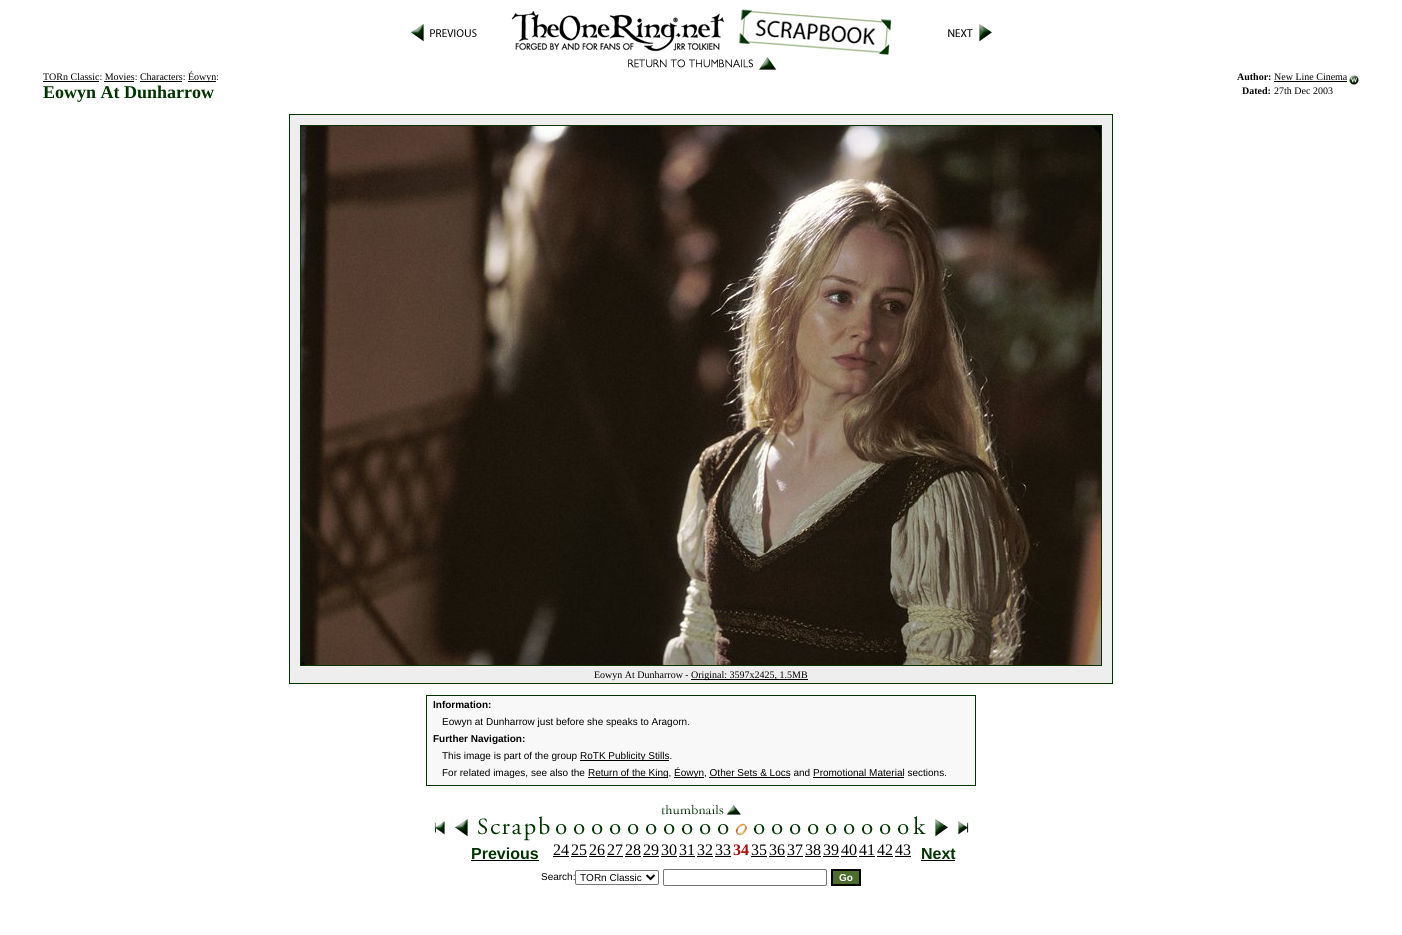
#include <cairo/cairo.h>
#include <math.h>
#include <stddef.h>


static void rounded_rect(cairo_t *cr, double x, double y, double w, double h, double r) {
  cairo_new_sub_path(cr);
  cairo_arc(cr, x + w - r, y + h - r, r, 0, M_PI / 2);
  cairo_arc(cr, x + r, y + h - r, r, M_PI / 2, M_PI);
  cairo_arc(cr, x + r, y + r, r, M_PI, 1.5 * M_PI);
  cairo_arc(cr, x + w - r, y + r, r, 1.5 * M_PI, 2 * M_PI);
  cairo_close_path(cr);
}

static void draw_image(cairo_t *cr, const char *path, double x, double y, double w, double h) {
  cairo_surface_t *image = cairo_image_surface_create_from_png(path);
  cairo_save(cr);
  cairo_set_source_surface(cr, image, x, y);
  cairo_rectangle(cr, x, y, w, h);
  cairo_fill(cr);
  cairo_restore(cr);
  cairo_surface_destroy(image);
}

static void draw(cairo_t *cr) {
  cairo_set_source_rgb(cr, 1, 1, 1);
  cairo_paint(cr);
  draw_image(cr, "images/1.png", 411, 24, 66, 18);
  draw_image(cr, "images/2.png", 511, 9, 381, 46);
  draw_image(cr, "images/3.png", 948, 24, 44, 18);
  draw_image(cr, "images/4.png", 628, 57, 149, 13);
  cairo_set_source_rgb(cr, 0, 0, 0);
  cairo_rectangle(cr, 43, 81, 56, 1);
  cairo_fill(cr);
  cairo_rectangle(cr, 104, 81, 30, 1);
  cairo_fill(cr);
  cairo_rectangle(cr, 140, 81, 42, 1);
  cairo_fill(cr);
  cairo_rectangle(cr, 188, 81, 28, 1);
  cairo_fill(cr);
  cairo_rectangle(cr, 1274, 81, 73, 1);
  cairo_fill(cr);
  draw_image(cr, "images/5.png", 1349, 75, 10, 10);
  cairo_rectangle(cr, 289.5, 114.5, 823, 569);
  cairo_set_source_rgb(cr, 0, 51 / 255.0, 0);
  cairo_set_line_width(cr, 1);
  cairo_stroke(cr);
  cairo_set_source_rgb(cr, 238 / 255.0, 238 / 255.0, 238 / 255.0);
  cairo_rectangle(cr, 290, 115, 822, 568);
  cairo_fill(cr);
  cairo_rectangle(cr, 300.5, 125.5, 801, 540);
  cairo_set_source_rgb(cr, 0, 51 / 255.0, 0);
  cairo_stroke(cr);
  draw_image(cr, "images/6.png", 301, 126, 800, 539);
  cairo_set_source_rgb(cr, 0, 0, 0);
  cairo_rectangle(cr, 691, 679, 117, 1);
  cairo_fill(cr);
  cairo_set_source_rgb(cr, 248 / 255.0, 248 / 255.0, 248 / 255.0);
  cairo_rectangle(cr, 426.5, 695.5, 549, 90);
  cairo_fill_preserve(cr);
  cairo_set_source_rgb(cr, 0, 51 / 255.0, 0);
  cairo_stroke(cr);
  cairo_set_source_rgb(cr, 0, 0, 0);
  cairo_rectangle(cr, 580, 760, 89, 1);
  cairo_fill(cr);
  cairo_rectangle(cr, 588, 777, 80, 1);
  cairo_fill(cr);
  cairo_rectangle(cr, 674, 777, 30, 1);
  cairo_fill(cr);
  cairo_rectangle(cr, 709, 777, 81, 1);
  cairo_fill(cr);
  cairo_rectangle(cr, 813, 777, 91, 1);
  cairo_fill(cr);
  draw_image(cr, "images/7.png", 661, 804, 80, 11);
  draw_image(cr, "images/8.png", 434, 821, 11, 14);
  draw_image(cr, "images/9.png", 455, 816, 95, 25);
  cairo_rectangle(cr, 471, 860, 68, 1);
  cairo_fill(cr);
  draw_image(cr, "images/10.png", 556, 824, 11, 11);
  cairo_rectangle(cr, 553, 856, 16, 1);
  cairo_fill(cr);
  draw_image(cr, "images/10.png", 574, 824, 11, 11);
  cairo_rectangle(cr, 571, 856, 16, 1);
  cairo_fill(cr);
  draw_image(cr, "images/10.png", 592, 824, 11, 11);
  cairo_rectangle(cr, 589, 856, 16, 1);
  cairo_fill(cr);
  draw_image(cr, "images/10.png", 610, 824, 11, 11);
  cairo_rectangle(cr, 607, 856, 16, 1);
  cairo_fill(cr);
  draw_image(cr, "images/10.png", 628, 824, 11, 11);
  cairo_rectangle(cr, 625, 856, 16, 1);
  cairo_fill(cr);
  draw_image(cr, "images/10.png", 646, 824, 11, 11);
  cairo_rectangle(cr, 643, 856, 16, 1);
  cairo_fill(cr);
  draw_image(cr, "images/10.png", 664, 824, 11, 11);
  cairo_rectangle(cr, 661, 856, 16, 1);
  cairo_fill(cr);
  draw_image(cr, "images/10.png", 682, 824, 11, 11);
  cairo_rectangle(cr, 679, 856, 16, 1);
  cairo_fill(cr);
  draw_image(cr, "images/10.png", 700, 824, 11, 11);
  cairo_rectangle(cr, 697, 856, 16, 1);
  cairo_fill(cr);
  draw_image(cr, "images/10.png", 718, 824, 11, 11);
  cairo_rectangle(cr, 715, 856, 16, 1);
  cairo_fill(cr);
  draw_image(cr, "images/11.png", 735, 823, 12, 13);
  draw_image(cr, "images/10.png", 754, 824, 11, 11);
  cairo_rectangle(cr, 751, 856, 16, 1);
  cairo_fill(cr);
  draw_image(cr, "images/10.png", 772, 824, 11, 11);
  cairo_rectangle(cr, 769, 856, 16, 1);
  cairo_fill(cr);
  draw_image(cr, "images/10.png", 790, 824, 11, 11);
  cairo_rectangle(cr, 787, 856, 16, 1);
  cairo_fill(cr);
  draw_image(cr, "images/10.png", 808, 824, 11, 11);
  cairo_rectangle(cr, 805, 856, 16, 1);
  cairo_fill(cr);
  draw_image(cr, "images/10.png", 826, 824, 11, 11);
  cairo_rectangle(cr, 823, 856, 16, 1);
  cairo_fill(cr);
  draw_image(cr, "images/10.png", 844, 824, 11, 11);
  cairo_rectangle(cr, 841, 856, 16, 1);
  cairo_fill(cr);
  draw_image(cr, "images/10.png", 862, 824, 11, 11);
  cairo_rectangle(cr, 859, 856, 16, 1);
  cairo_fill(cr);
  draw_image(cr, "images/10.png", 880, 824, 11, 11);
  cairo_rectangle(cr, 877, 856, 16, 1);
  cairo_fill(cr);
  draw_image(cr, "images/10.png", 898, 824, 11, 11);
  cairo_rectangle(cr, 895, 856, 16, 1);
  cairo_fill(cr);
  draw_image(cr, "images/12.png", 913, 816, 35, 21);
  draw_image(cr, "images/13.png", 958, 821, 11, 14);
  cairo_rectangle(cr, 921, 860, 34, 1);
  cairo_fill(cr);
  rounded_rect(cr, 575.5, 870.5, 83, 14, 1.5);
  cairo_set_source_rgb(cr, 118 / 255.0, 118 / 255.0, 118 / 255.0);
  cairo_stroke(cr);
  cairo_new_path(cr);
  cairo_move_to(cr, 646.5, 875);
  cairo_line_to(cr, 650.5, 879);
  cairo_line_to(cr, 654.5, 875);
  cairo_set_source_rgb(cr, 0, 0, 0);
  cairo_set_line_width(cr, 2);
  cairo_stroke(cr);
  rounded_rect(cr, 663.5, 869.5, 163, 16, 1.5);
  cairo_set_source_rgb(cr, 118 / 255.0, 118 / 255.0, 118 / 255.0);
  cairo_set_line_width(cr, 1);
  cairo_stroke(cr);
  cairo_set_source_rgb(cr, 77 / 255.0, 109 / 255.0, 45 / 255.0);
  cairo_rectangle(cr, 832, 870, 28, 15);
  cairo_fill_preserve(cr);
  cairo_set_source_rgb(cr, 0, 0, 0);
  cairo_set_line_width(cr, 2);
  cairo_stroke(cr);
  cairo_select_font_face(cr, "Liberation Serif", CAIRO_FONT_SLANT_NORMAL, CAIRO_FONT_WEIGHT_NORMAL);
  cairo_set_font_size(cr, 10);
  cairo_move_to(cr, 43, 80);
  cairo_show_text(cr, "TORn Classic: Movies: Characters:");
  cairo_move_to(cr, 188, 80);
  cairo_show_text(cr, "Éowyn:");
  cairo_select_font_face(cr, "Liberation Serif", CAIRO_FONT_SLANT_NORMAL, CAIRO_FONT_WEIGHT_BOLD);
  cairo_set_font_size(cr, 18);
  cairo_set_source_rgb(cr, 0, 51 / 255.0, 0);
  cairo_move_to(cr, 43, 98);
  cairo_show_text(cr, "Eowyn At Dunharrow");
  cairo_set_font_size(cr, 10);
  cairo_set_source_rgb(cr, 0, 0, 0);
  cairo_move_to(cr, 1237, 80);
  cairo_show_text(cr, "Author:");
  cairo_select_font_face(cr, "Liberation Serif", CAIRO_FONT_SLANT_NORMAL, CAIRO_FONT_WEIGHT_NORMAL);
  cairo_move_to(cr, 1274, 80);
  cairo_show_text(cr, "New Line Cinema");
  cairo_select_font_face(cr, "Liberation Serif", CAIRO_FONT_SLANT_NORMAL, CAIRO_FONT_WEIGHT_BOLD);
  cairo_move_to(cr, 1242, 94);
  cairo_show_text(cr, "Dated:");
  cairo_select_font_face(cr, "Liberation Serif", CAIRO_FONT_SLANT_NORMAL, CAIRO_FONT_WEIGHT_NORMAL);
  cairo_move_to(cr, 1274, 94);
  cairo_show_text(cr, "27th Dec 2003");
  cairo_move_to(cr, 594, 678);
  cairo_show_text(cr, "Eowyn At Dunharrow -");
  cairo_move_to(cr, 691, 678);
  cairo_show_text(cr, "Original: 3597x2425, 1.5MB");
  cairo_select_font_face(cr, "Liberation Sans", CAIRO_FONT_SLANT_NORMAL, CAIRO_FONT_WEIGHT_BOLD);
  cairo_move_to(cr, 433, 708);
  cairo_show_text(cr, "Information:");
  cairo_select_font_face(cr, "Liberation Sans", CAIRO_FONT_SLANT_NORMAL, CAIRO_FONT_WEIGHT_NORMAL);
  cairo_move_to(cr, 442, 725);
  cairo_show_text(cr, "Eowyn at Dunharrow just before she speaks to Aragorn.");
  cairo_select_font_face(cr, "Liberation Sans", CAIRO_FONT_SLANT_NORMAL, CAIRO_FONT_WEIGHT_BOLD);
  cairo_move_to(cr, 433, 742);
  cairo_show_text(cr, "Further Navigation:");
  cairo_select_font_face(cr, "Liberation Sans", CAIRO_FONT_SLANT_NORMAL, CAIRO_FONT_WEIGHT_NORMAL);
  cairo_move_to(cr, 442, 759);
  cairo_show_text(cr, "This image is part of the group");
  cairo_move_to(cr, 580, 759);
  cairo_show_text(cr, "RoTK Publicity Stills.");
  cairo_move_to(cr, 442, 776);
  cairo_show_text(cr, "For related images, see also the");
  cairo_move_to(cr, 588, 776);
  cairo_show_text(cr, "Return of the King,");
  cairo_move_to(cr, 674, 776);
  cairo_show_text(cr, "Éowyn, Other Sets & Locs and Promotional Material sections.");
  cairo_select_font_face(cr, "Liberation Sans", CAIRO_FONT_SLANT_NORMAL, CAIRO_FONT_WEIGHT_BOLD);
  cairo_set_font_size(cr, 16);
  cairo_set_source_rgb(cr, 0, 51 / 255.0, 0);
  cairo_move_to(cr, 471, 859);
  cairo_show_text(cr, "Previous");
  cairo_select_font_face(cr, "Liberation Serif", CAIRO_FONT_SLANT_NORMAL, CAIRO_FONT_WEIGHT_NORMAL);
  cairo_set_source_rgb(cr, 0, 0, 0);
  cairo_move_to(cr, 553, 855);
  cairo_show_text(cr, "24");
  cairo_move_to(cr, 571, 855);
  cairo_show_text(cr, "25");
  cairo_move_to(cr, 589, 855);
  cairo_show_text(cr, "26");
  cairo_move_to(cr, 607, 855);
  cairo_show_text(cr, "27");
  cairo_move_to(cr, 625, 855);
  cairo_show_text(cr, "28");
  cairo_move_to(cr, 643, 855);
  cairo_show_text(cr, "29");
  cairo_move_to(cr, 661, 855);
  cairo_show_text(cr, "30");
  cairo_move_to(cr, 679, 855);
  cairo_show_text(cr, "31");
  cairo_move_to(cr, 697, 855);
  cairo_show_text(cr, "32");
  cairo_move_to(cr, 715, 855);
  cairo_show_text(cr, "33");
  cairo_select_font_face(cr, "Liberation Serif", CAIRO_FONT_SLANT_NORMAL, CAIRO_FONT_WEIGHT_BOLD);
  cairo_set_source_rgb(cr, 169 / 255.0, 10 / 255.0, 8 / 255.0);
  cairo_move_to(cr, 733, 855);
  cairo_show_text(cr, "34");
  cairo_select_font_face(cr, "Liberation Serif", CAIRO_FONT_SLANT_NORMAL, CAIRO_FONT_WEIGHT_NORMAL);
  cairo_set_source_rgb(cr, 0, 0, 0);
  cairo_move_to(cr, 751, 855);
  cairo_show_text(cr, "35");
  cairo_move_to(cr, 769, 855);
  cairo_show_text(cr, "36");
  cairo_move_to(cr, 787, 855);
  cairo_show_text(cr, "37");
  cairo_move_to(cr, 805, 855);
  cairo_show_text(cr, "38");
  cairo_move_to(cr, 823, 855);
  cairo_show_text(cr, "39");
  cairo_move_to(cr, 841, 855);
  cairo_show_text(cr, "40");
  cairo_move_to(cr, 859, 855);
  cairo_show_text(cr, "41");
  cairo_move_to(cr, 877, 855);
  cairo_show_text(cr, "42");
  cairo_move_to(cr, 895, 855);
  cairo_show_text(cr, "43");
  cairo_select_font_face(cr, "Liberation Sans", CAIRO_FONT_SLANT_NORMAL, CAIRO_FONT_WEIGHT_BOLD);
  cairo_set_source_rgb(cr, 0, 51 / 255.0, 0);
  cairo_move_to(cr, 921, 859);
  cairo_show_text(cr, "Next");
  cairo_select_font_face(cr, "Liberation Sans", CAIRO_FONT_SLANT_NORMAL, CAIRO_FONT_WEIGHT_NORMAL);
  cairo_set_font_size(cr, 10);
  cairo_set_source_rgb(cr, 0, 0, 0);
  cairo_move_to(cr, 541, 880);
  cairo_show_text(cr, "Search:");
  cairo_move_to(cr, 580, 881);
  cairo_show_text(cr, "TORn Classic");
  cairo_select_font_face(cr, "Liberation Sans", CAIRO_FONT_SLANT_NORMAL, CAIRO_FONT_WEIGHT_BOLD);
  cairo_set_source_rgb(cr, 1, 1, 1);
  cairo_move_to(cr, 839, 881);
  cairo_show_text(cr, "Go");
}

int main(void) {
  cairo_surface_t *surface = cairo_image_surface_create(CAIRO_FORMAT_RGB24, 1402, 935);
  cairo_t *cr = cairo_create(surface);
  cairo_font_options_t *options = cairo_font_options_create();
  cairo_font_options_set_hint_metrics(options, CAIRO_HINT_METRICS_OFF);
  cairo_font_options_set_hint_style(options, CAIRO_HINT_STYLE_NONE);
  cairo_set_font_options(cr, options);
  cairo_set_miter_limit(cr, 4);
  draw(cr);
  cairo_surface_write_to_png(surface, "out.png");
  cairo_font_options_destroy(options);
  cairo_destroy(cr);
  cairo_surface_destroy(surface);
  return 0;
}
